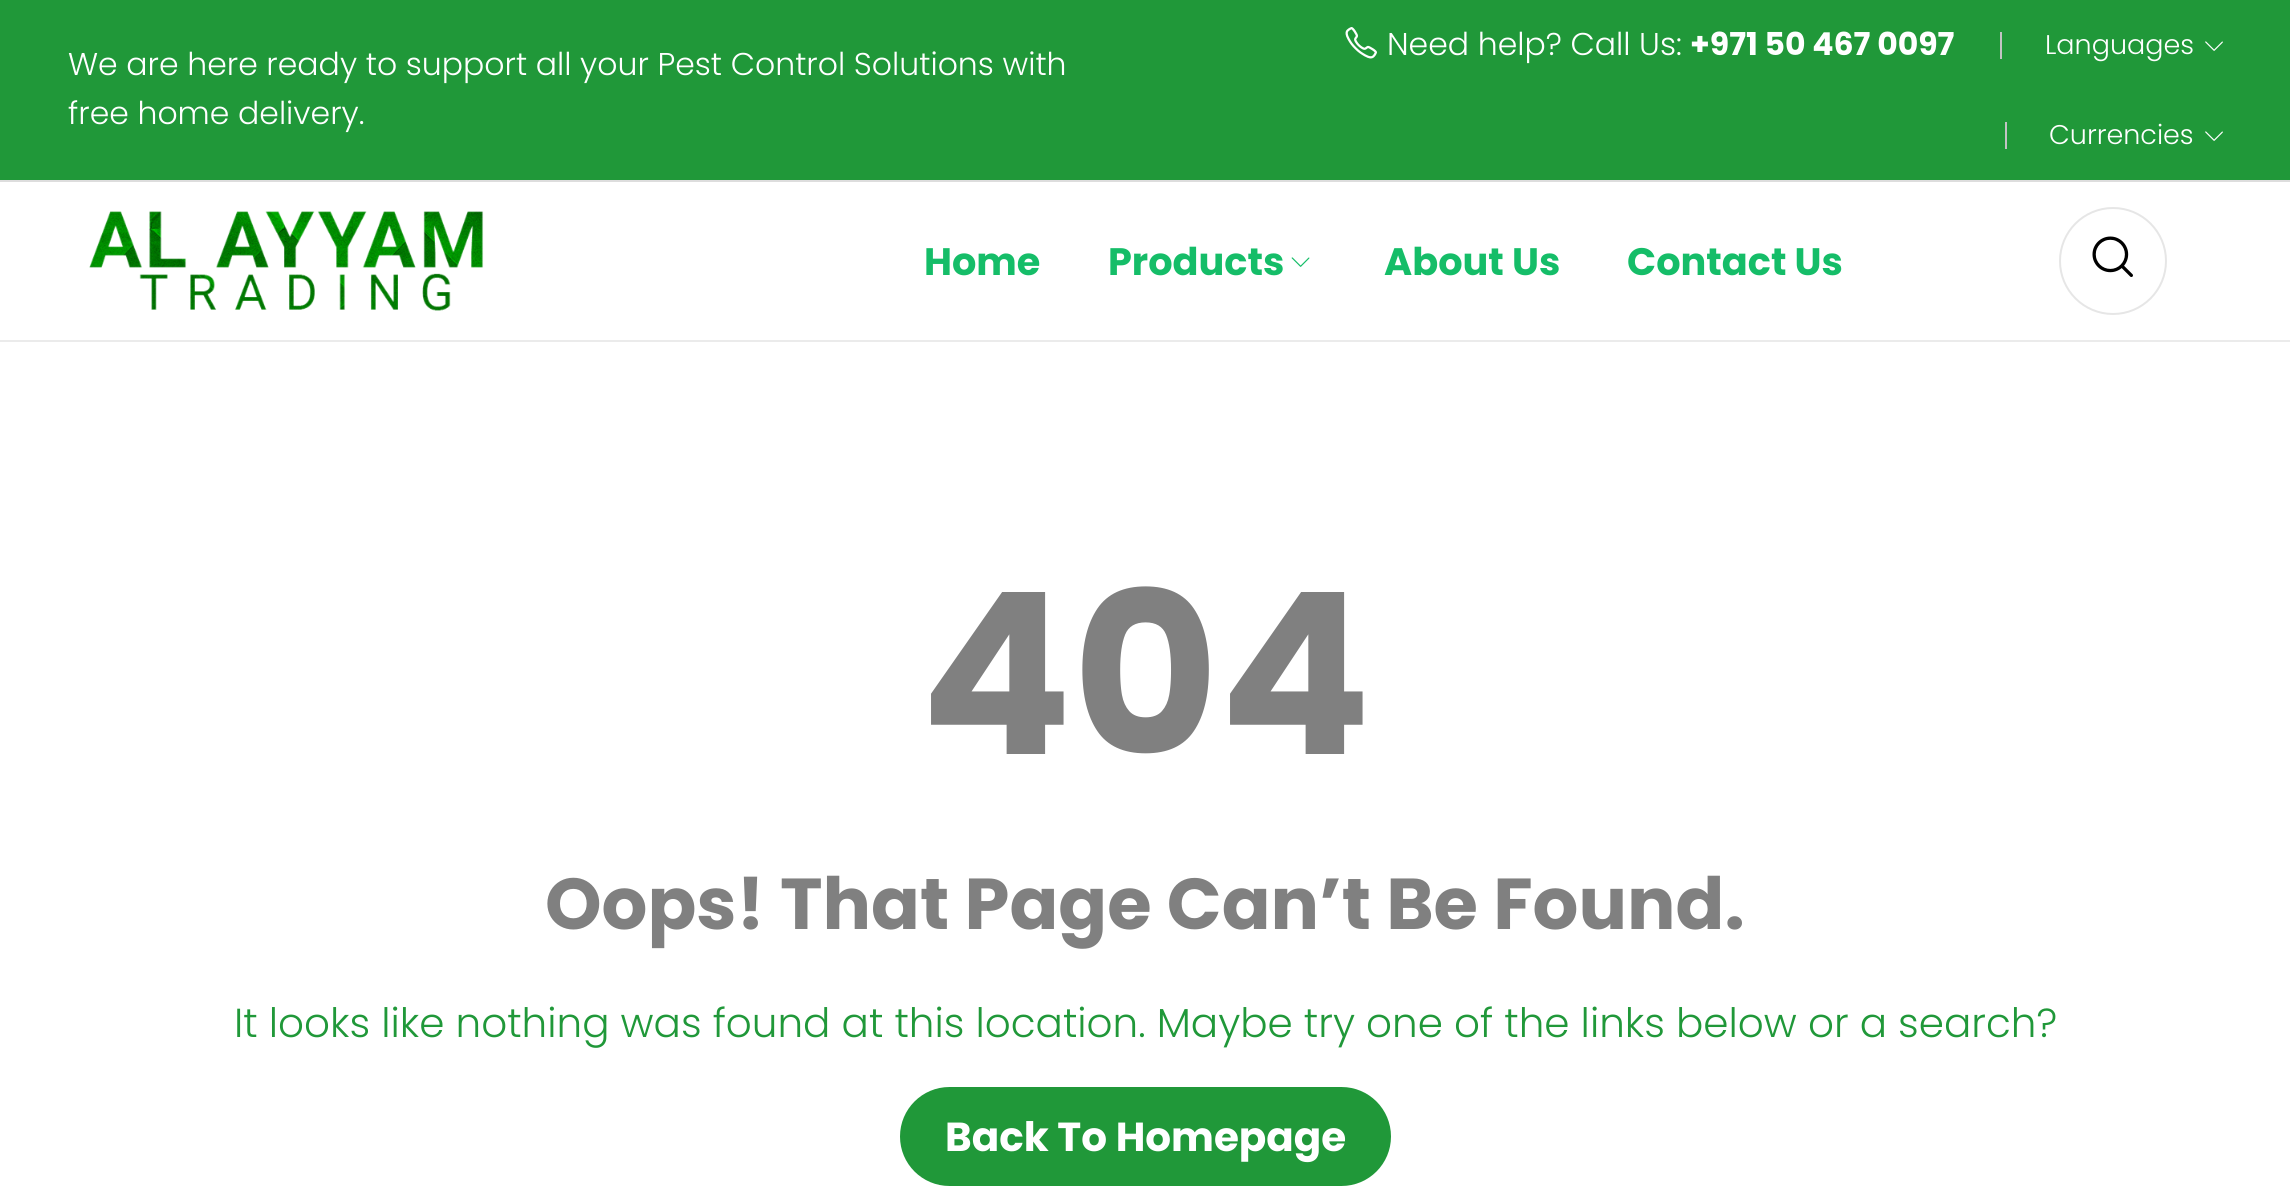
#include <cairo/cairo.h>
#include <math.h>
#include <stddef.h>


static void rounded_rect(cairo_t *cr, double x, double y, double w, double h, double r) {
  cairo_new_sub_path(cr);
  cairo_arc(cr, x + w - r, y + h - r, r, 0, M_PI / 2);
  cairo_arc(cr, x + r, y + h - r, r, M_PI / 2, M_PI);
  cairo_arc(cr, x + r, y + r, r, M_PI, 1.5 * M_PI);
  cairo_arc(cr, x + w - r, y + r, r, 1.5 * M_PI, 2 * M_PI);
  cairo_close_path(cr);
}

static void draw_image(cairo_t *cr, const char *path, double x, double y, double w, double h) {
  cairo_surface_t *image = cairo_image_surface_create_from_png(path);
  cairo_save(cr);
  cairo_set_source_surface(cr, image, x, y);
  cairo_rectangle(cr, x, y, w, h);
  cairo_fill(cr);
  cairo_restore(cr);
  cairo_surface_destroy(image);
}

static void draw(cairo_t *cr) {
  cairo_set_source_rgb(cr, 1, 1, 1);
  cairo_paint(cr);
  cairo_set_source_rgb(cr, 32 / 255.0, 152 / 255.0, 57 / 255.0);
  cairo_rectangle(cr, 0, 0, 2290, 180);
  cairo_fill(cr);
  cairo_set_source_rgb(cr, 221 / 255.0, 221 / 255.0, 221 / 255.0);
  cairo_rectangle(cr, 0, 180, 2290, 2);
  cairo_fill(cr);
  draw_image(cr, "images/1.png", 1345, 27, 32, 32);
  cairo_set_source_rgb(cr, 195 / 255.0, 195 / 255.0, 195 / 255.0);
  cairo_rectangle(cr, 2000, 32, 2, 27);
  cairo_fill(cr);
  draw_image(cr, "images/2.png", 2205, 41, 18, 10);
  cairo_rectangle(cr, 2005, 122, 2, 27);
  cairo_fill(cr);
  draw_image(cr, "images/2.png", 2205, 131, 18, 10);
  cairo_set_source_rgb(cr, 235 / 255.0, 235 / 255.0, 235 / 255.0);
  cairo_rectangle(cr, 0, 340, 2290, 2);
  cairo_fill(cr);
  draw_image(cr, "images/3.png", 89, 211, 395, 100);
  draw_image(cr, "images/4.png", 1291, 257, 19, 10);
  cairo_arc(cr, 2113, 261, 53, 0, 2 * M_PI);
  cairo_set_source_rgb(cr, 230 / 255.0, 230 / 255.0, 230 / 255.0);
  cairo_stroke(cr);
  draw_image(cr, "images/5.png", 2092, 236, 41, 41);
  cairo_set_source_rgb(cr, 32 / 255.0, 152 / 255.0, 57 / 255.0);
  rounded_rect(cr, 900, 1087, 491, 99, 49.5);
  cairo_fill(cr);
  cairo_select_font_face(cr, "Poppins Light", CAIRO_FONT_SLANT_NORMAL, CAIRO_FONT_WEIGHT_NORMAL);
  cairo_set_font_size(cr, 31.5);
  cairo_set_source_rgb(cr, 1, 1, 1);
  cairo_move_to(cr, 68, 75);
  cairo_show_text(cr, "We are here ready to support all your Pest Control Solutions with");
  cairo_move_to(cr, 68, 124);
  cairo_show_text(cr, "free home delivery.");
  cairo_move_to(cr, 1387, 55);
  cairo_show_text(cr, "Need help? Call Us:");
  cairo_select_font_face(cr, "Poppins", CAIRO_FONT_SLANT_NORMAL, CAIRO_FONT_WEIGHT_BOLD);
  cairo_move_to(cr, 1690, 55);
  cairo_show_text(cr, "+971 50 467 0097");
  cairo_select_font_face(cr, "Poppins Light", CAIRO_FONT_SLANT_NORMAL, CAIRO_FONT_WEIGHT_NORMAL);
  cairo_set_font_size(cr, 27);
  cairo_move_to(cr, 2045, 54);
  cairo_show_text(cr, "Languages");
  cairo_move_to(cr, 2049, 144);
  cairo_show_text(cr, "Currencies");
  cairo_select_font_face(cr, "Poppins", CAIRO_FONT_SLANT_NORMAL, CAIRO_FONT_WEIGHT_BOLD);
  cairo_set_font_size(cr, 38.25);
  cairo_set_source_rgb(cr, 21 / 255.0, 189 / 255.0, 104 / 255.0);
  cairo_move_to(cr, 924, 275);
  cairo_show_text(cr, "Home");
  cairo_move_to(cr, 1108, 275);
  cairo_show_text(cr, "Products");
  cairo_move_to(cr, 1384, 275);
  cairo_show_text(cr, "About Us");
  cairo_move_to(cr, 1627, 275);
  cairo_show_text(cr, "Contact Us");
  cairo_set_font_size(cr, 225);
  cairo_set_source_rgb(cr, 128 / 255.0, 128 / 255.0, 128 / 255.0);
  cairo_move_to(cr, 920, 754);
  cairo_show_text(cr, "404");
  cairo_set_font_size(cr, 72);
  cairo_move_to(cr, 545, 929);
  cairo_show_text(cr, "Oops! That Page Can’t Be Found.");
  cairo_select_font_face(cr, "Poppins Light", CAIRO_FONT_SLANT_NORMAL, CAIRO_FONT_WEIGHT_NORMAL);
  cairo_set_font_size(cr, 40.5);
  cairo_set_source_rgb(cr, 32 / 255.0, 152 / 255.0, 57 / 255.0);
  cairo_move_to(cr, 234, 1037);
  cairo_show_text(cr, "It looks like nothing was found at this location. Maybe try one of the links below or a search?");
  cairo_select_font_face(cr, "Poppins", CAIRO_FONT_SLANT_NORMAL, CAIRO_FONT_WEIGHT_BOLD);
  cairo_set_source_rgb(cr, 1, 1, 1);
  cairo_move_to(cr, 945, 1151);
  cairo_show_text(cr, "Back To Homepage");
}

int main(void) {
  cairo_surface_t *surface = cairo_image_surface_create(CAIRO_FORMAT_RGB24, 2290, 1190);
  cairo_t *cr = cairo_create(surface);
  cairo_font_options_t *options = cairo_font_options_create();
  cairo_font_options_set_hint_metrics(options, CAIRO_HINT_METRICS_OFF);
  cairo_font_options_set_hint_style(options, CAIRO_HINT_STYLE_NONE);
  cairo_set_font_options(cr, options);
  cairo_set_miter_limit(cr, 4);
  draw(cr);
  cairo_surface_write_to_png(surface, "out.png");
  cairo_font_options_destroy(options);
  cairo_destroy(cr);
  cairo_surface_destroy(surface);
  return 0;
}
